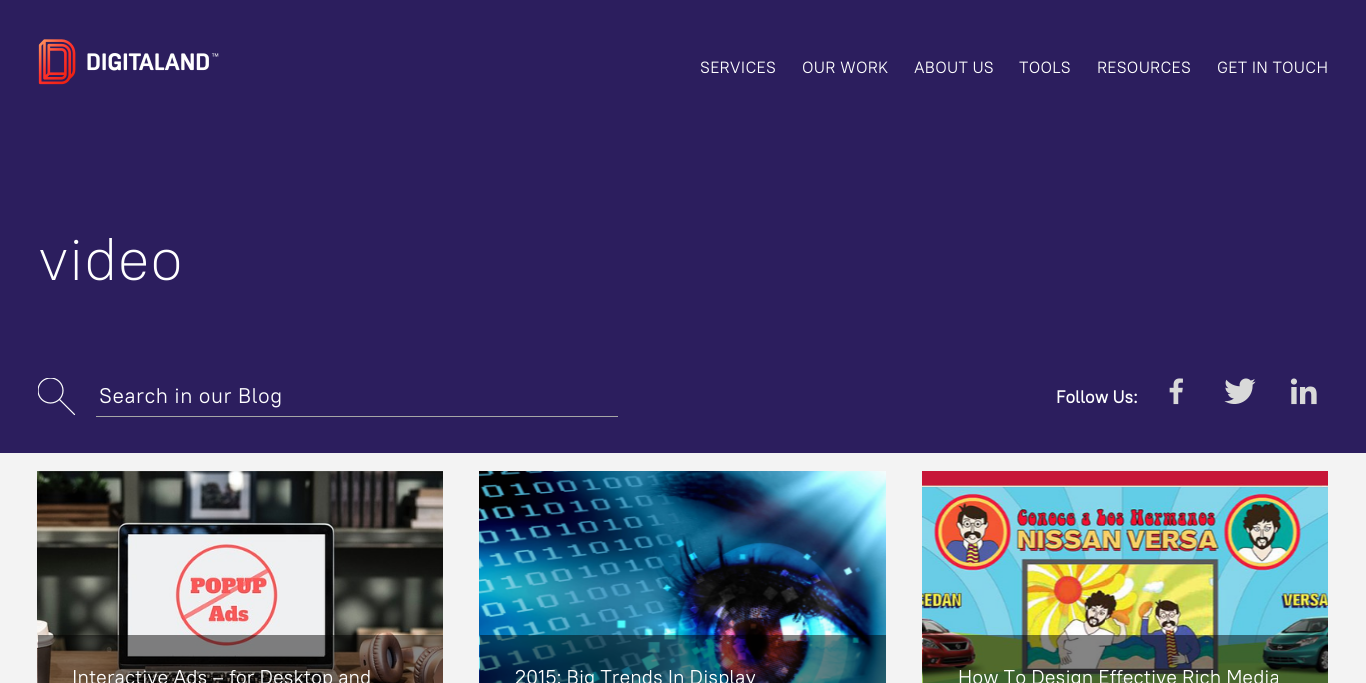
#include <cairo/cairo.h>
#include <math.h>
#include <stddef.h>


static void draw_spaced(cairo_t *cr, double x, double y, const char *s, double letter, double word) {
  cairo_move_to(cr, x, y);
  while (*s) {
    char ch[5] = {0};
    int n = 0;
    do ch[n++] = *s++; while ((*s & 0xC0) == 0x80);
    cairo_show_text(cr, ch);
    cairo_rel_move_to(cr, letter + word * (*ch == ' '), 0);
  }
}

static void draw_image(cairo_t *cr, const char *path, double x, double y, double w, double h) {
  cairo_surface_t *image = cairo_image_surface_create_from_png(path);
  cairo_save(cr);
  cairo_set_source_surface(cr, image, x, y);
  cairo_rectangle(cr, x, y, w, h);
  cairo_fill(cr);
  cairo_restore(cr);
  cairo_surface_destroy(image);
}

static void draw(cairo_t *cr) {
  cairo_set_source_rgb(cr, 44 / 255.0, 30 / 255.0, 94 / 255.0);
  cairo_paint(cr);
  draw_image(cr, "images/1.png", 38, 39, 181, 46);
  cairo_new_path(cr);
  cairo_move_to(cr, 59.5, 399.5);
  cairo_line_to(cr, 74.5, 414.5);
  cairo_set_source_rgb(cr, 1, 1, 1);
  cairo_set_line_width(cr, 1.2);
  cairo_set_line_cap(cr, CAIRO_LINE_CAP_ROUND);
  cairo_stroke(cr);
  cairo_save(cr);
  cairo_rectangle(cr, 38, 378, 37, 37);
  cairo_clip(cr);
  cairo_arc(cr, 50.5, 390.5, 12.5, 0, 2 * M_PI);
  cairo_set_line_cap(cr, CAIRO_LINE_CAP_BUTT);
  cairo_stroke(cr);
  cairo_restore(cr);
  cairo_set_source_rgb(cr, 166 / 255.0, 166 / 255.0, 166 / 255.0);
  cairo_rectangle(cr, 96, 416, 522, 1);
  cairo_fill(cr);
  draw_image(cr, "images/2.png", 1169, 378, 14, 27);
  draw_image(cr, "images/3.png", 1224, 378, 32, 26);
  draw_image(cr, "images/4.png", 1290, 378, 27, 27);
  cairo_set_source_rgb(cr, 243 / 255.0, 243 / 255.0, 243 / 255.0);
  cairo_rectangle(cr, 0, 453, 1366, 230);
  cairo_fill(cr);
  draw_image(cr, "images/5.png", 37, 471, 406, 212);
  cairo_set_source_rgba(cr, 0, 0, 0, 0.48);
  cairo_rectangle(cr, 38, 635, 405, 48);
  cairo_fill(cr);
  draw_image(cr, "images/6.png", 479, 471, 407, 212);
  cairo_rectangle(cr, 480, 635, 406, 48);
  cairo_fill(cr);
  draw_image(cr, "images/7.png", 922, 471, 406, 212);
  cairo_rectangle(cr, 923, 635, 405, 48);
  cairo_fill(cr);
  cairo_select_font_face(cr, "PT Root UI", CAIRO_FONT_SLANT_NORMAL, CAIRO_FONT_WEIGHT_NORMAL);
  cairo_set_font_size(cr, 16.25);
  cairo_set_source_rgb(cr, 1, 1, 1);
  draw_spaced(cr, 700, 73, "SERVICES", 0.25, 0);
  draw_spaced(cr, 802, 73, "OUR WORK", 0.25, 0);
  draw_spaced(cr, 914, 73, "ABOUT US", 0.25, 0);
  draw_spaced(cr, 1019, 73, "TOOLS", 0.25, 0);
  draw_spaced(cr, 1097, 73, "RESOURCES", 0.25, 0);
  draw_spaced(cr, 1217, 73, "GET IN TOUCH", 0.25, 0);
  cairo_select_font_face(cr, "PT Root UI Light", CAIRO_FONT_SLANT_NORMAL, CAIRO_FONT_WEIGHT_NORMAL);
  cairo_set_font_size(cr, 60);
  cairo_move_to(cr, 38, 280);
  cairo_show_text(cr, "video");
  cairo_select_font_face(cr, "PT Root UI", CAIRO_FONT_SLANT_NORMAL, CAIRO_FONT_WEIGHT_NORMAL);
  cairo_set_font_size(cr, 21.25);
  draw_spaced(cr, 99, 403, "Search in our Blog", 0.5, 0);
  cairo_select_font_face(cr, "PT Root UI", CAIRO_FONT_SLANT_NORMAL, CAIRO_FONT_WEIGHT_BOLD);
  cairo_set_font_size(cr, 17.5);
  cairo_move_to(cr, 1056, 403);
  cairo_show_text(cr, "Follow Us:");
  cairo_select_font_face(cr, "PT Root UI", CAIRO_FONT_SLANT_NORMAL, CAIRO_FONT_WEIGHT_NORMAL);
  cairo_set_font_size(cr, 20);
  cairo_move_to(cr, 72, 684);
  cairo_show_text(cr, "Interactive Ads – for Desktop and");
  cairo_move_to(cr, 515, 684);
  cairo_show_text(cr, "2015: Big Trends In Display");
  cairo_move_to(cr, 958, 684);
  cairo_show_text(cr, "How To Design Effective Rich Media");
}

int main(void) {
  cairo_surface_t *surface = cairo_image_surface_create(CAIRO_FORMAT_RGB24, 1366, 683);
  cairo_t *cr = cairo_create(surface);
  cairo_font_options_t *options = cairo_font_options_create();
  cairo_font_options_set_hint_metrics(options, CAIRO_HINT_METRICS_OFF);
  cairo_font_options_set_hint_style(options, CAIRO_HINT_STYLE_NONE);
  cairo_set_font_options(cr, options);
  cairo_set_miter_limit(cr, 4);
  draw(cr);
  cairo_surface_write_to_png(surface, "out.png");
  cairo_font_options_destroy(options);
  cairo_destroy(cr);
  cairo_surface_destroy(surface);
  return 0;
}
